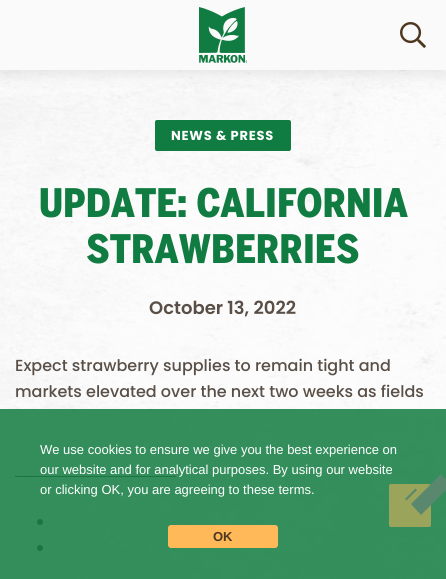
#include <cairo/cairo.h>
#include <math.h>
#include <stddef.h>


static void draw_spaced(cairo_t *cr, double x, double y, const char *s, double letter, double word) {
  cairo_move_to(cr, x, y);
  while (*s) {
    char ch[5] = {0};
    int n = 0;
    do ch[n++] = *s++; while ((*s & 0xC0) == 0x80);
    cairo_show_text(cr, ch);
    cairo_rel_move_to(cr, letter + word * (*ch == ' '), 0);
  }
}

static void rounded_rect(cairo_t *cr, double x, double y, double w, double h, double r) {
  cairo_new_sub_path(cr);
  cairo_arc(cr, x + w - r, y + h - r, r, 0, M_PI / 2);
  cairo_arc(cr, x + r, y + h - r, r, M_PI / 2, M_PI);
  cairo_arc(cr, x + r, y + r, r, M_PI, 1.5 * M_PI);
  cairo_arc(cr, x + w - r, y + r, r, 1.5 * M_PI, 2 * M_PI);
  cairo_close_path(cr);
}

static void draw_shadow(cairo_t *cr, double x, double y, double w, double h, double r, double blur, double alpha) {
  cairo_push_group_with_content(cr, CAIRO_CONTENT_ALPHA);
  cairo_set_operator(cr, CAIRO_OPERATOR_SOURCE);
  for (int i = 15; i >= -15 && fmin(w, h) + blur * i / 3 > 0; i -= 2) {
    double e = blur * i / 6;
    cairo_set_source_rgba(cr, 0, 0, 0, alpha * erfc((i - 1) / 8.5) / 2);
    rounded_rect(cr, x - e, y - e, w + 2 * e, h + 2 * e, fmax(0, fmin(r + e + blur * .6, fmin(w, h) / 2 + e)));
    cairo_fill(cr);
  }
  cairo_pattern_t *soft = cairo_pop_group(cr);
  cairo_mask(cr, soft);
  cairo_pattern_destroy(soft);
}

static void draw_image(cairo_t *cr, const char *path, double x, double y, double w, double h) {
  cairo_surface_t *image = cairo_image_surface_create_from_png(path);
  cairo_save(cr);
  cairo_set_source_surface(cr, image, x, y);
  cairo_rectangle(cr, x, y, w, h);
  cairo_fill(cr);
  cairo_restore(cr);
  cairo_surface_destroy(image);
}

static void draw(cairo_t *cr) {
  cairo_set_source_rgb(cr, 1, 1, 1);
  cairo_paint(cr);
  draw_image(cr, "images/1.png", 0, 70, 446, 509);
  cairo_set_source_rgb(cr, 0, 0, 0);
  draw_shadow(cr, 0, 5, 446, 70, 0, 7.5, 0.09);
  cairo_set_source_rgb(cr, 250 / 255.0, 250 / 255.0, 250 / 255.0);
  cairo_rectangle(cr, 0, 2, 446, 68);
  cairo_fill(cr);
  draw_image(cr, "images/2.png", 199, 7, 48, 56);
  draw_image(cr, "images/3.png", 400, 22, 26, 26);
  cairo_set_source_rgb(cr, 17 / 255.0, 124 / 255.0, 65 / 255.0);
  rounded_rect(cr, 155, 120, 136, 31, 2);
  cairo_fill(cr);
  cairo_set_source_rgb(cr, 89 / 255.0, 79 / 255.0, 71 / 255.0);
  cairo_rectangle(cr, 15, 476, 161, 1);
  cairo_fill(cr);
  cairo_arc(cr, 40, 522, 3, 0, 2 * M_PI);
  cairo_fill(cr);
  cairo_arc(cr, 40, 548, 3, 0, 2 * M_PI);
  cairo_fill(cr);
  cairo_set_source_rgba(cr, 17 / 255.0, 124 / 255.0, 65 / 255.0, 0.85);
  cairo_rectangle(cr, 0, 409, 446, 170);
  cairo_fill(cr);
  cairo_set_source_rgb(cr, 1, 185 / 255.0, 89 / 255.0);
  rounded_rect(cr, 168, 525, 110, 23, 3);
  cairo_fill(cr);
  cairo_set_source_rgb(cr, 154 / 255.0, 164 / 255.0, 91 / 255.0);
  rounded_rect(cr, 389, 484, 42, 43, 2);
  cairo_fill(cr);
  cairo_set_source_rgb(cr, 90 / 255.0, 136 / 255.0, 110 / 255.0);
  cairo_new_path(cr);
  cairo_move_to(cr, 415.5, 488.5);
  cairo_line_to(cr, 417, 490);
  cairo_line_to(cr, 406.5, 500.5);
  cairo_line_to(cr, 405, 499);
  cairo_close_path(cr);
  cairo_fill(cr);
  cairo_new_path(cr);
  cairo_move_to(cr, 411, 504);
  cairo_line_to(cr, 441, 474);
  cairo_line_to(cr, 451, 485);
  cairo_line_to(cr, 421, 515);
  cairo_close_path(cr);
  cairo_fill(cr);
  cairo_select_font_face(cr, "Poppins", CAIRO_FONT_SLANT_NORMAL, CAIRO_FONT_WEIGHT_BOLD);
  cairo_set_font_size(cr, 13);
  cairo_set_source_rgb(cr, 1, 1, 1);
  draw_spaced(cr, 171, 140, "NEWS & PRESS", 0.75, 0);
  cairo_select_font_face(cr, "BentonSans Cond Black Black", CAIRO_FONT_SLANT_NORMAL, CAIRO_FONT_WEIGHT_NORMAL);
  cairo_set_font_size(cr, 39);
  cairo_set_source_rgb(cr, 17 / 255.0, 124 / 255.0, 65 / 255.0);
  cairo_move_to(cr, 39, 217);
  cairo_show_text(cr, "UPDATE: CALIFORNIA");
  cairo_move_to(cr, 86, 263);
  cairo_show_text(cr, "STRAWBERRIES");
  cairo_select_font_face(cr, "Poppins SemiBold", CAIRO_FONT_SLANT_NORMAL, CAIRO_FONT_WEIGHT_NORMAL);
  cairo_set_font_size(cr, 18);
  cairo_set_source_rgb(cr, 89 / 255.0, 79 / 255.0, 71 / 255.0);
  cairo_move_to(cr, 149, 314);
  cairo_show_text(cr, "October 13, 2022");
  cairo_select_font_face(cr, "Poppins Medium", CAIRO_FONT_SLANT_NORMAL, CAIRO_FONT_WEIGHT_NORMAL);
  cairo_set_font_size(cr, 16);
  cairo_move_to(cr, 15, 371);
  cairo_show_text(cr, "Expect strawberry supplies to remain tight and");
  cairo_move_to(cr, 15, 397);
  cairo_show_text(cr, "markets elevated over the next two weeks as fields");
  cairo_select_font_face(cr, "Liberation Sans", CAIRO_FONT_SLANT_NORMAL, CAIRO_FONT_WEIGHT_NORMAL);
  cairo_set_font_size(cr, 13);
  cairo_set_source_rgb(cr, 1, 1, 1);
  cairo_move_to(cr, 40, 454);
  cairo_show_text(cr, "We use cookies to ensure we give you the best experience on");
  cairo_move_to(cr, 40, 474);
  cairo_show_text(cr, "our website and for analytical purposes. By using our website");
  cairo_move_to(cr, 40, 494);
  cairo_show_text(cr, "or clicking OK, you are agreeing to these terms.");
  cairo_select_font_face(cr, "Liberation Sans", CAIRO_FONT_SLANT_NORMAL, CAIRO_FONT_WEIGHT_BOLD);
  cairo_set_source_rgb(cr, 77 / 255.0, 55 / 255.0, 31 / 255.0);
  cairo_move_to(cr, 213, 541);
  cairo_show_text(cr, "OK");
}

int main(void) {
  cairo_surface_t *surface = cairo_image_surface_create(CAIRO_FORMAT_RGB24, 446, 579);
  cairo_t *cr = cairo_create(surface);
  cairo_font_options_t *options = cairo_font_options_create();
  cairo_font_options_set_hint_metrics(options, CAIRO_HINT_METRICS_OFF);
  cairo_font_options_set_hint_style(options, CAIRO_HINT_STYLE_NONE);
  cairo_set_font_options(cr, options);
  cairo_set_miter_limit(cr, 4);
  draw(cr);
  cairo_surface_write_to_png(surface, "out.png");
  cairo_font_options_destroy(options);
  cairo_destroy(cr);
  cairo_surface_destroy(surface);
  return 0;
}
